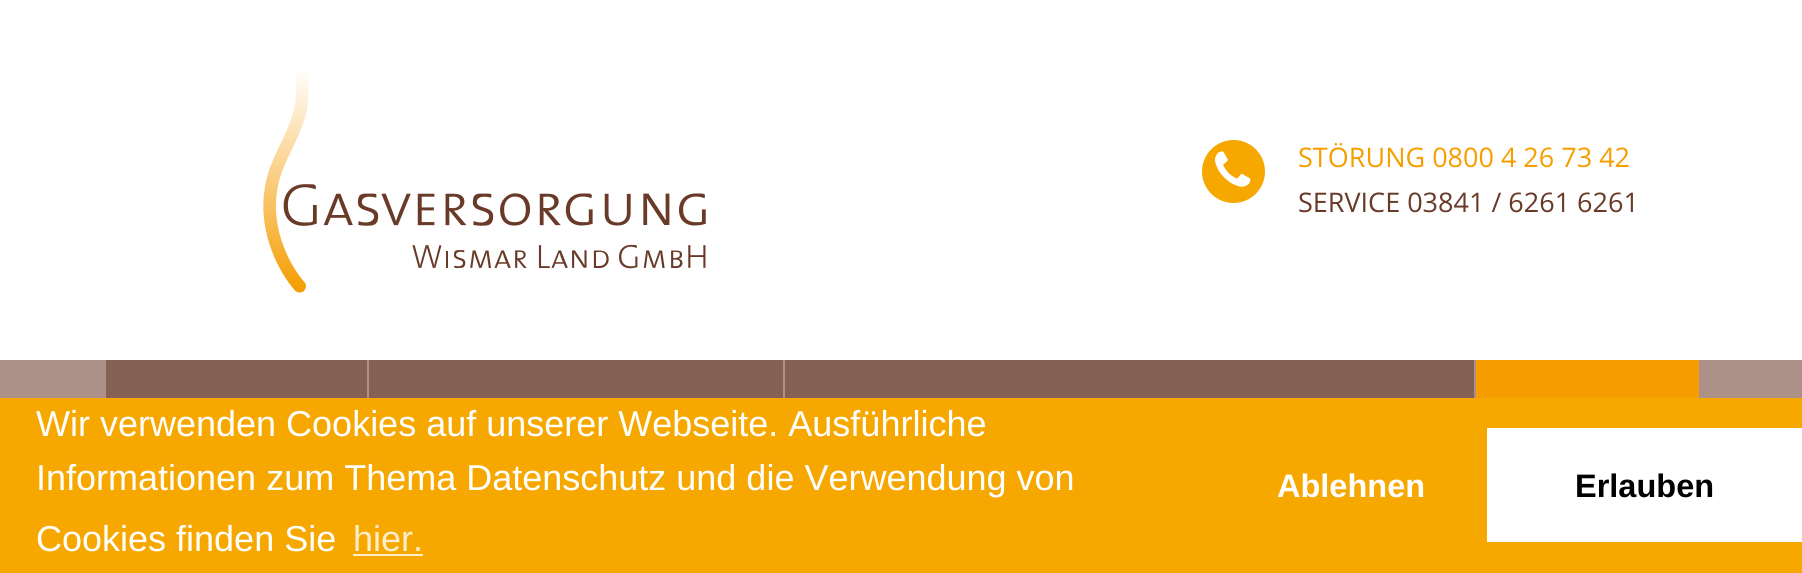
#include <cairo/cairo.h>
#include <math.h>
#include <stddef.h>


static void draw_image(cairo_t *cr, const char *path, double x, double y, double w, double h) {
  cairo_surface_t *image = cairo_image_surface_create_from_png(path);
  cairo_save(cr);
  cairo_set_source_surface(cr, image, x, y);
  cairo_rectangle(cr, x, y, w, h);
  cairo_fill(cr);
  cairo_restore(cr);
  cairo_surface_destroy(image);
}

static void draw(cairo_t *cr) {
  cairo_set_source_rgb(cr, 1, 1, 1);
  cairo_paint(cr);
  draw_image(cr, "images/1.png", 263, 71, 443, 222);
  cairo_set_source_rgb(cr, 247 / 255.0, 168 / 255.0, 0);
  cairo_arc(cr, 1233.5, 171.5, 31.5, 0, 2 * M_PI);
  cairo_fill(cr);
  draw_image(cr, "images/2.png", 1215, 151, 36, 36);
  cairo_set_source_rgb(cr, 171 / 255.0, 145 / 255.0, 136 / 255.0);
  cairo_rectangle(cr, 0, 360, 1802, 38);
  cairo_fill(cr);
  cairo_set_source_rgb(cr, 134 / 255.0, 96 / 255.0, 82 / 255.0);
  cairo_rectangle(cr, 106, 360, 261, 38);
  cairo_fill(cr);
  cairo_rectangle(cr, 369, 360, 414, 38);
  cairo_fill(cr);
  cairo_rectangle(cr, 785, 360, 689, 38);
  cairo_fill(cr);
  cairo_set_source_rgb(cr, 246 / 255.0, 158 / 255.0, 0);
  cairo_rectangle(cr, 1476, 360, 223, 38);
  cairo_fill(cr);
  cairo_set_source_rgb(cr, 247 / 255.0, 168 / 255.0, 0);
  cairo_rectangle(cr, 0, 398, 1802, 175);
  cairo_fill(cr);
  cairo_set_source_rgb(cr, 253 / 255.0, 238 / 255.0, 204 / 255.0);
  cairo_rectangle(cr, 353, 554, 70, 2);
  cairo_fill(cr);
  cairo_set_source_rgb(cr, 1, 1, 1);
  cairo_rectangle(cr, 1487, 428, 315, 114);
  cairo_fill(cr);
  cairo_select_font_face(cr, "Open Sans", CAIRO_FONT_SLANT_NORMAL, CAIRO_FONT_WEIGHT_NORMAL);
  cairo_set_font_size(cr, 27);
  cairo_set_source_rgb(cr, 246 / 255.0, 158 / 255.0, 0);
  cairo_move_to(cr, 1298, 167);
  cairo_show_text(cr, "STÖRUNG 0800 4 26 73 42");
  cairo_set_source_rgb(cr, 105 / 255.0, 58 / 255.0, 40 / 255.0);
  cairo_move_to(cr, 1298, 212);
  cairo_show_text(cr, "SERVICE 03841 / 6261 6261");
  cairo_select_font_face(cr, "Liberation Sans", CAIRO_FONT_SLANT_NORMAL, CAIRO_FONT_WEIGHT_NORMAL);
  cairo_set_font_size(cr, 36);
  cairo_set_source_rgb(cr, 1, 1, 1);
  cairo_move_to(cr, 36, 436);
  cairo_show_text(cr, "Wir verwenden Cookies auf unserer Webseite. Ausführliche");
  cairo_move_to(cr, 36, 490);
  cairo_show_text(cr, "Informationen zum Thema Datenschutz und die Verwendung von");
  cairo_move_to(cr, 36, 551);
  cairo_show_text(cr, "Cookies finden Sie");
  cairo_set_source_rgb(cr, 253 / 255.0, 238 / 255.0, 204 / 255.0);
  cairo_move_to(cr, 353, 551);
  cairo_show_text(cr, "hier.");
  cairo_select_font_face(cr, "Liberation Sans", CAIRO_FONT_SLANT_NORMAL, CAIRO_FONT_WEIGHT_BOLD);
  cairo_set_font_size(cr, 32.5);
  cairo_set_source_rgb(cr, 1, 1, 1);
  cairo_move_to(cr, 1277, 497);
  cairo_show_text(cr, "Ablehnen");
  cairo_set_source_rgb(cr, 0, 0, 0);
  cairo_move_to(cr, 1575, 497);
  cairo_show_text(cr, "Erlauben");
}

int main(void) {
  cairo_surface_t *surface = cairo_image_surface_create(CAIRO_FORMAT_RGB24, 1802, 573);
  cairo_t *cr = cairo_create(surface);
  cairo_font_options_t *options = cairo_font_options_create();
  cairo_font_options_set_hint_metrics(options, CAIRO_HINT_METRICS_OFF);
  cairo_font_options_set_hint_style(options, CAIRO_HINT_STYLE_NONE);
  cairo_set_font_options(cr, options);
  cairo_set_miter_limit(cr, 4);
  draw(cr);
  cairo_surface_write_to_png(surface, "out.png");
  cairo_font_options_destroy(options);
  cairo_destroy(cr);
  cairo_surface_destroy(surface);
  return 0;
}
